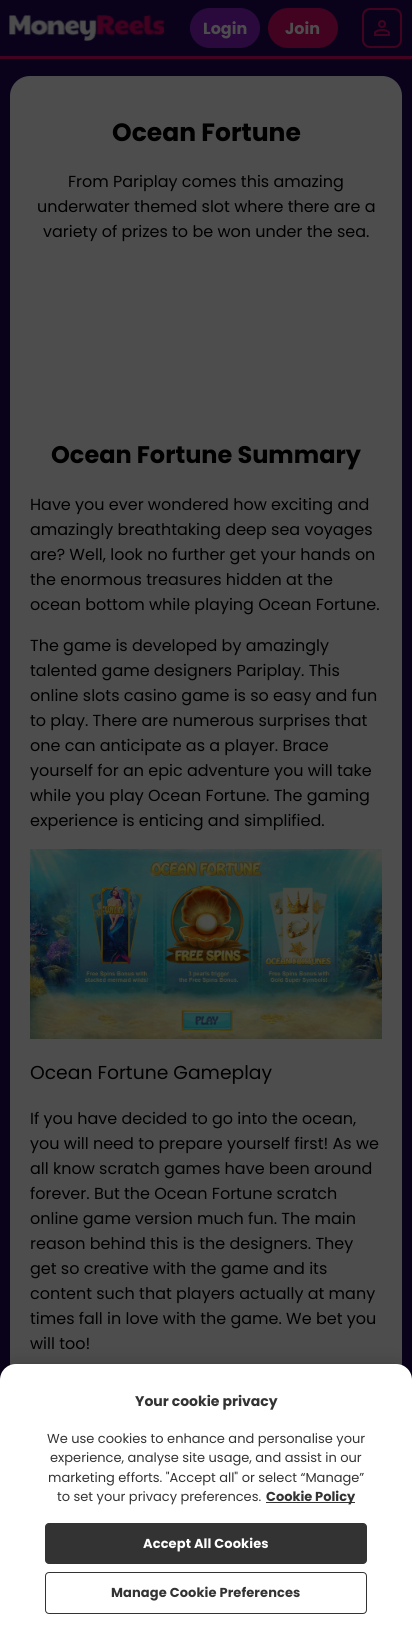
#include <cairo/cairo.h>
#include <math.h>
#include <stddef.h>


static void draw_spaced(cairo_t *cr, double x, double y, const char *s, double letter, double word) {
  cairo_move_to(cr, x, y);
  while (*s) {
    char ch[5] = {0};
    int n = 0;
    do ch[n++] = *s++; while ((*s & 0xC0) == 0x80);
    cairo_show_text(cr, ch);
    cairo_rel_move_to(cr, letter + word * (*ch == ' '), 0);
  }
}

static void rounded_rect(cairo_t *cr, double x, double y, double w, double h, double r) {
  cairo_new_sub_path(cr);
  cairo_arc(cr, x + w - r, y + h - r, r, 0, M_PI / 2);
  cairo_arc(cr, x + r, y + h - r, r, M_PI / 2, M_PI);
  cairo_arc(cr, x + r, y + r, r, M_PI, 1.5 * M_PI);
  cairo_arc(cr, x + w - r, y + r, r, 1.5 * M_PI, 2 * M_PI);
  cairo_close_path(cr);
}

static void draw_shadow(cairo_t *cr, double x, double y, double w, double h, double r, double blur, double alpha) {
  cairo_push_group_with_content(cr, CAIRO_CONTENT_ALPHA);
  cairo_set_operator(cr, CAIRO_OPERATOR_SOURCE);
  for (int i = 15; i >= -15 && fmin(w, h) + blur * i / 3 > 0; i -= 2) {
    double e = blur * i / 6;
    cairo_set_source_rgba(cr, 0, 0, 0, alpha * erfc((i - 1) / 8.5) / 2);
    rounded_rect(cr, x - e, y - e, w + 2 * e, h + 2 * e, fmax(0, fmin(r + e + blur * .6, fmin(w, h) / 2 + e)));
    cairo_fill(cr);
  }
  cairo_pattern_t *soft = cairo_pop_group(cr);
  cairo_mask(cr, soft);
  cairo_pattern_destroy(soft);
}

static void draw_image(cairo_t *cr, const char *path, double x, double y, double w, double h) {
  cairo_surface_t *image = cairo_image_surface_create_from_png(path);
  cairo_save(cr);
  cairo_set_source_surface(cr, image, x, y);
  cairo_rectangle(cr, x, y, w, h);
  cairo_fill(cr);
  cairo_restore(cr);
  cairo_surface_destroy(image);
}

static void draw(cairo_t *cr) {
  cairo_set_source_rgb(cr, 10 / 255.0, 2 / 255.0, 27 / 255.0);
  cairo_paint(cr);
  cairo_set_source_rgb(cr, 65 / 255.0, 3 / 255.0, 31 / 255.0);
  cairo_rectangle(cr, 0, 56, 412, 3);
  cairo_fill(cr);
  draw_image(cr, "images/1.png", 9, 15, 156, 27);
  cairo_set_source_rgb(cr, 42 / 255.0, 10 / 255.0, 60 / 255.0);
  rounded_rect(cr, 190, 8, 70, 40, 20);
  cairo_fill(cr);
  cairo_set_source_rgb(cr, 65 / 255.0, 3 / 255.0, 31 / 255.0);
  rounded_rect(cr, 268, 8, 70, 40, 20);
  cairo_fill(cr);
  rounded_rect(cr, 362, 8, 40, 40, 8);
  cairo_fill(cr);
  cairo_set_source_rgb(cr, 10 / 255.0, 2 / 255.0, 27 / 255.0);
  rounded_rect(cr, 364, 10, 36, 36, 6);
  cairo_fill(cr);
  draw_image(cr, "images/2.png", 374, 20, 16, 16);
  cairo_set_source_rgb(cr, 77 / 255.0, 77 / 255.0, 77 / 255.0);
  rounded_rect(cr, 10, 76, 392, 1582, 20);
  cairo_fill(cr);
  draw_image(cr, "images/3.png", 30, 849, 352, 190);
  cairo_set_source_rgb(cr, 0, 0, 0);
  draw_shadow(cr, 0, 1364, 412, 274, 16, 9, 0.2);
  cairo_set_source_rgb(cr, 1, 1, 1);
  cairo_new_path(cr);
  cairo_move_to(cr, 16, 1364);
  cairo_line_to(cr, 396, 1364);
  cairo_curve_to(cr, 405, 1364, 412, 1371, 412, 1380);
  cairo_line_to(cr, 412, 1638);
  cairo_line_to(cr, 0, 1638);
  cairo_line_to(cr, 0, 1380);
  cairo_curve_to(cr, 0, 1371, 7, 1364, 16, 1364);
  cairo_close_path(cr);
  cairo_fill(cr);
  cairo_set_source_rgb(cr, 51 / 255.0, 51 / 255.0, 51 / 255.0);
  cairo_rectangle(cr, 266, 1502, 89, 1);
  cairo_fill(cr);
  rounded_rect(cr, 45.5, 1523.5, 321, 40, 3.5);
  cairo_fill_preserve(cr);
  cairo_set_line_width(cr, 1);
  cairo_stroke(cr);
  rounded_rect(cr, 45.5, 1572.5, 321, 41, 3.5);
  cairo_stroke(cr);
  cairo_select_font_face(cr, "Poppins", CAIRO_FONT_SLANT_NORMAL, CAIRO_FONT_WEIGHT_BOLD);
  cairo_set_font_size(cr, 16);
  cairo_set_source_rgb(cr, 77 / 255.0, 77 / 255.0, 77 / 255.0);
  cairo_move_to(cr, 203, 34);
  cairo_show_text(cr, "Login");
  cairo_move_to(cr, 285, 34);
  cairo_show_text(cr, "Join");
  cairo_set_font_size(cr, 25);
  cairo_set_source_rgb(cr, 0, 0, 0);
  cairo_move_to(cr, 112, 141);
  cairo_show_text(cr, "Ocean Fortune");
  cairo_select_font_face(cr, "Poppins", CAIRO_FONT_SLANT_NORMAL, CAIRO_FONT_WEIGHT_NORMAL);
  cairo_set_font_size(cr, 16);
  cairo_move_to(cr, 68, 187);
  cairo_show_text(cr, "From Pariplay comes this amazing");
  cairo_move_to(cr, 37, 212);
  cairo_show_text(cr, "underwater themed slot where there are a");
  cairo_move_to(cr, 43, 237);
  cairo_show_text(cr, "variety of prizes to be won under the sea.");
  cairo_select_font_face(cr, "Poppins", CAIRO_FONT_SLANT_NORMAL, CAIRO_FONT_WEIGHT_BOLD);
  cairo_set_font_size(cr, 24);
  cairo_move_to(cr, 51, 463);
  cairo_show_text(cr, "Ocean Fortune Summary");
  cairo_select_font_face(cr, "Poppins", CAIRO_FONT_SLANT_NORMAL, CAIRO_FONT_WEIGHT_NORMAL);
  cairo_set_font_size(cr, 16);
  cairo_move_to(cr, 30, 510);
  cairo_show_text(cr, "Have you ever wondered how exciting and");
  cairo_move_to(cr, 30, 535);
  cairo_show_text(cr, "amazingly breathtaking deep sea voyages");
  cairo_move_to(cr, 30, 560);
  cairo_show_text(cr, "are? Well, look no further get your hands on");
  cairo_move_to(cr, 30, 585);
  cairo_show_text(cr, "the enormous treasures hidden at the");
  cairo_move_to(cr, 30, 610);
  cairo_show_text(cr, "ocean bottom while playing Ocean Fortune.");
  cairo_move_to(cr, 30, 651);
  cairo_show_text(cr, "The game is developed by amazingly");
  cairo_move_to(cr, 30, 676);
  cairo_show_text(cr, "talented game designers Pariplay. This");
  cairo_move_to(cr, 30, 701);
  cairo_show_text(cr, "online slots casino game is so easy and fun");
  cairo_move_to(cr, 30, 726);
  cairo_show_text(cr, "to play. There are numerous surprises that");
  cairo_move_to(cr, 30, 751);
  cairo_show_text(cr, "one can anticipate as a player. Brace");
  cairo_move_to(cr, 30, 776);
  cairo_show_text(cr, "yourself for an epic adventure you will take");
  cairo_move_to(cr, 30, 801);
  cairo_show_text(cr, "while you play Ocean Fortune. The gaming");
  cairo_move_to(cr, 30, 826);
  cairo_show_text(cr, "experience is enticing and simplified.");
  cairo_set_font_size(cr, 18.75);
  cairo_move_to(cr, 30, 1079);
  cairo_show_text(cr, "Ocean Fortune Gameplay");
  cairo_set_font_size(cr, 16);
  cairo_move_to(cr, 30, 1124);
  cairo_show_text(cr, "If you have decided to go into the ocean,");
  cairo_move_to(cr, 30, 1149);
  cairo_show_text(cr, "you will need to prepare yourself first! As we");
  cairo_move_to(cr, 30, 1174);
  cairo_show_text(cr, "all know scratch games have been around");
  cairo_move_to(cr, 30, 1199);
  cairo_show_text(cr, "forever. But the Ocean Fortune scratch");
  cairo_move_to(cr, 30, 1224);
  cairo_show_text(cr, "online game version much fun. The main");
  cairo_move_to(cr, 30, 1249);
  cairo_show_text(cr, "reason behind this is the designers. They");
  cairo_move_to(cr, 30, 1274);
  cairo_show_text(cr, "get so creative with the game and its");
  cairo_move_to(cr, 30, 1299);
  cairo_show_text(cr, "content such that players actually at many");
  cairo_move_to(cr, 30, 1324);
  cairo_show_text(cr, "times fall in love with the game. We bet you");
  cairo_move_to(cr, 30, 1349);
  cairo_show_text(cr, "will too!");
  cairo_select_font_face(cr, "Poppins", CAIRO_FONT_SLANT_NORMAL, CAIRO_FONT_WEIGHT_BOLD);
  cairo_set_font_size(cr, 14);
  cairo_set_source_rgb(cr, 51 / 255.0, 51 / 255.0, 51 / 255.0);
  cairo_move_to(cr, 135, 1406);
  cairo_show_text(cr, "Your cookie privacy");
  cairo_select_font_face(cr, "Poppins", CAIRO_FONT_SLANT_NORMAL, CAIRO_FONT_WEIGHT_NORMAL);
  cairo_set_font_size(cr, 13);
  cairo_move_to(cr, 47, 1443);
  cairo_show_text(cr, "We use cookies to enhance and personalise your");
  cairo_move_to(cr, 50, 1462);
  cairo_show_text(cr, "experience, analyse site usage, and assist in our");
  cairo_move_to(cr, 48, 1482);
  cairo_show_text(cr, "marketing efforts. \"Accept all\" or select “Manage”");
  cairo_move_to(cr, 57, 1501);
  cairo_show_text(cr, "to set your privacy preferences.");
  cairo_select_font_face(cr, "Poppins", CAIRO_FONT_SLANT_NORMAL, CAIRO_FONT_WEIGHT_BOLD);
  cairo_move_to(cr, 266, 1501);
  cairo_show_text(cr, "Cookie Policy");
  cairo_set_source_rgb(cr, 1, 1, 1);
  draw_spaced(cr, 143, 1548, "Accept All Cookies", 0.1, 0);
  cairo_set_source_rgb(cr, 51 / 255.0, 51 / 255.0, 51 / 255.0);
  draw_spaced(cr, 111, 1597, "Manage Cookie Preferences", 0.1, 0);
}

int main(void) {
  cairo_surface_t *surface = cairo_image_surface_create(CAIRO_FORMAT_RGB24, 412, 1638);
  cairo_t *cr = cairo_create(surface);
  cairo_font_options_t *options = cairo_font_options_create();
  cairo_font_options_set_hint_metrics(options, CAIRO_HINT_METRICS_OFF);
  cairo_font_options_set_hint_style(options, CAIRO_HINT_STYLE_NONE);
  cairo_set_font_options(cr, options);
  cairo_set_miter_limit(cr, 4);
  draw(cr);
  cairo_surface_write_to_png(surface, "out.png");
  cairo_font_options_destroy(options);
  cairo_destroy(cr);
  cairo_surface_destroy(surface);
  return 0;
}
